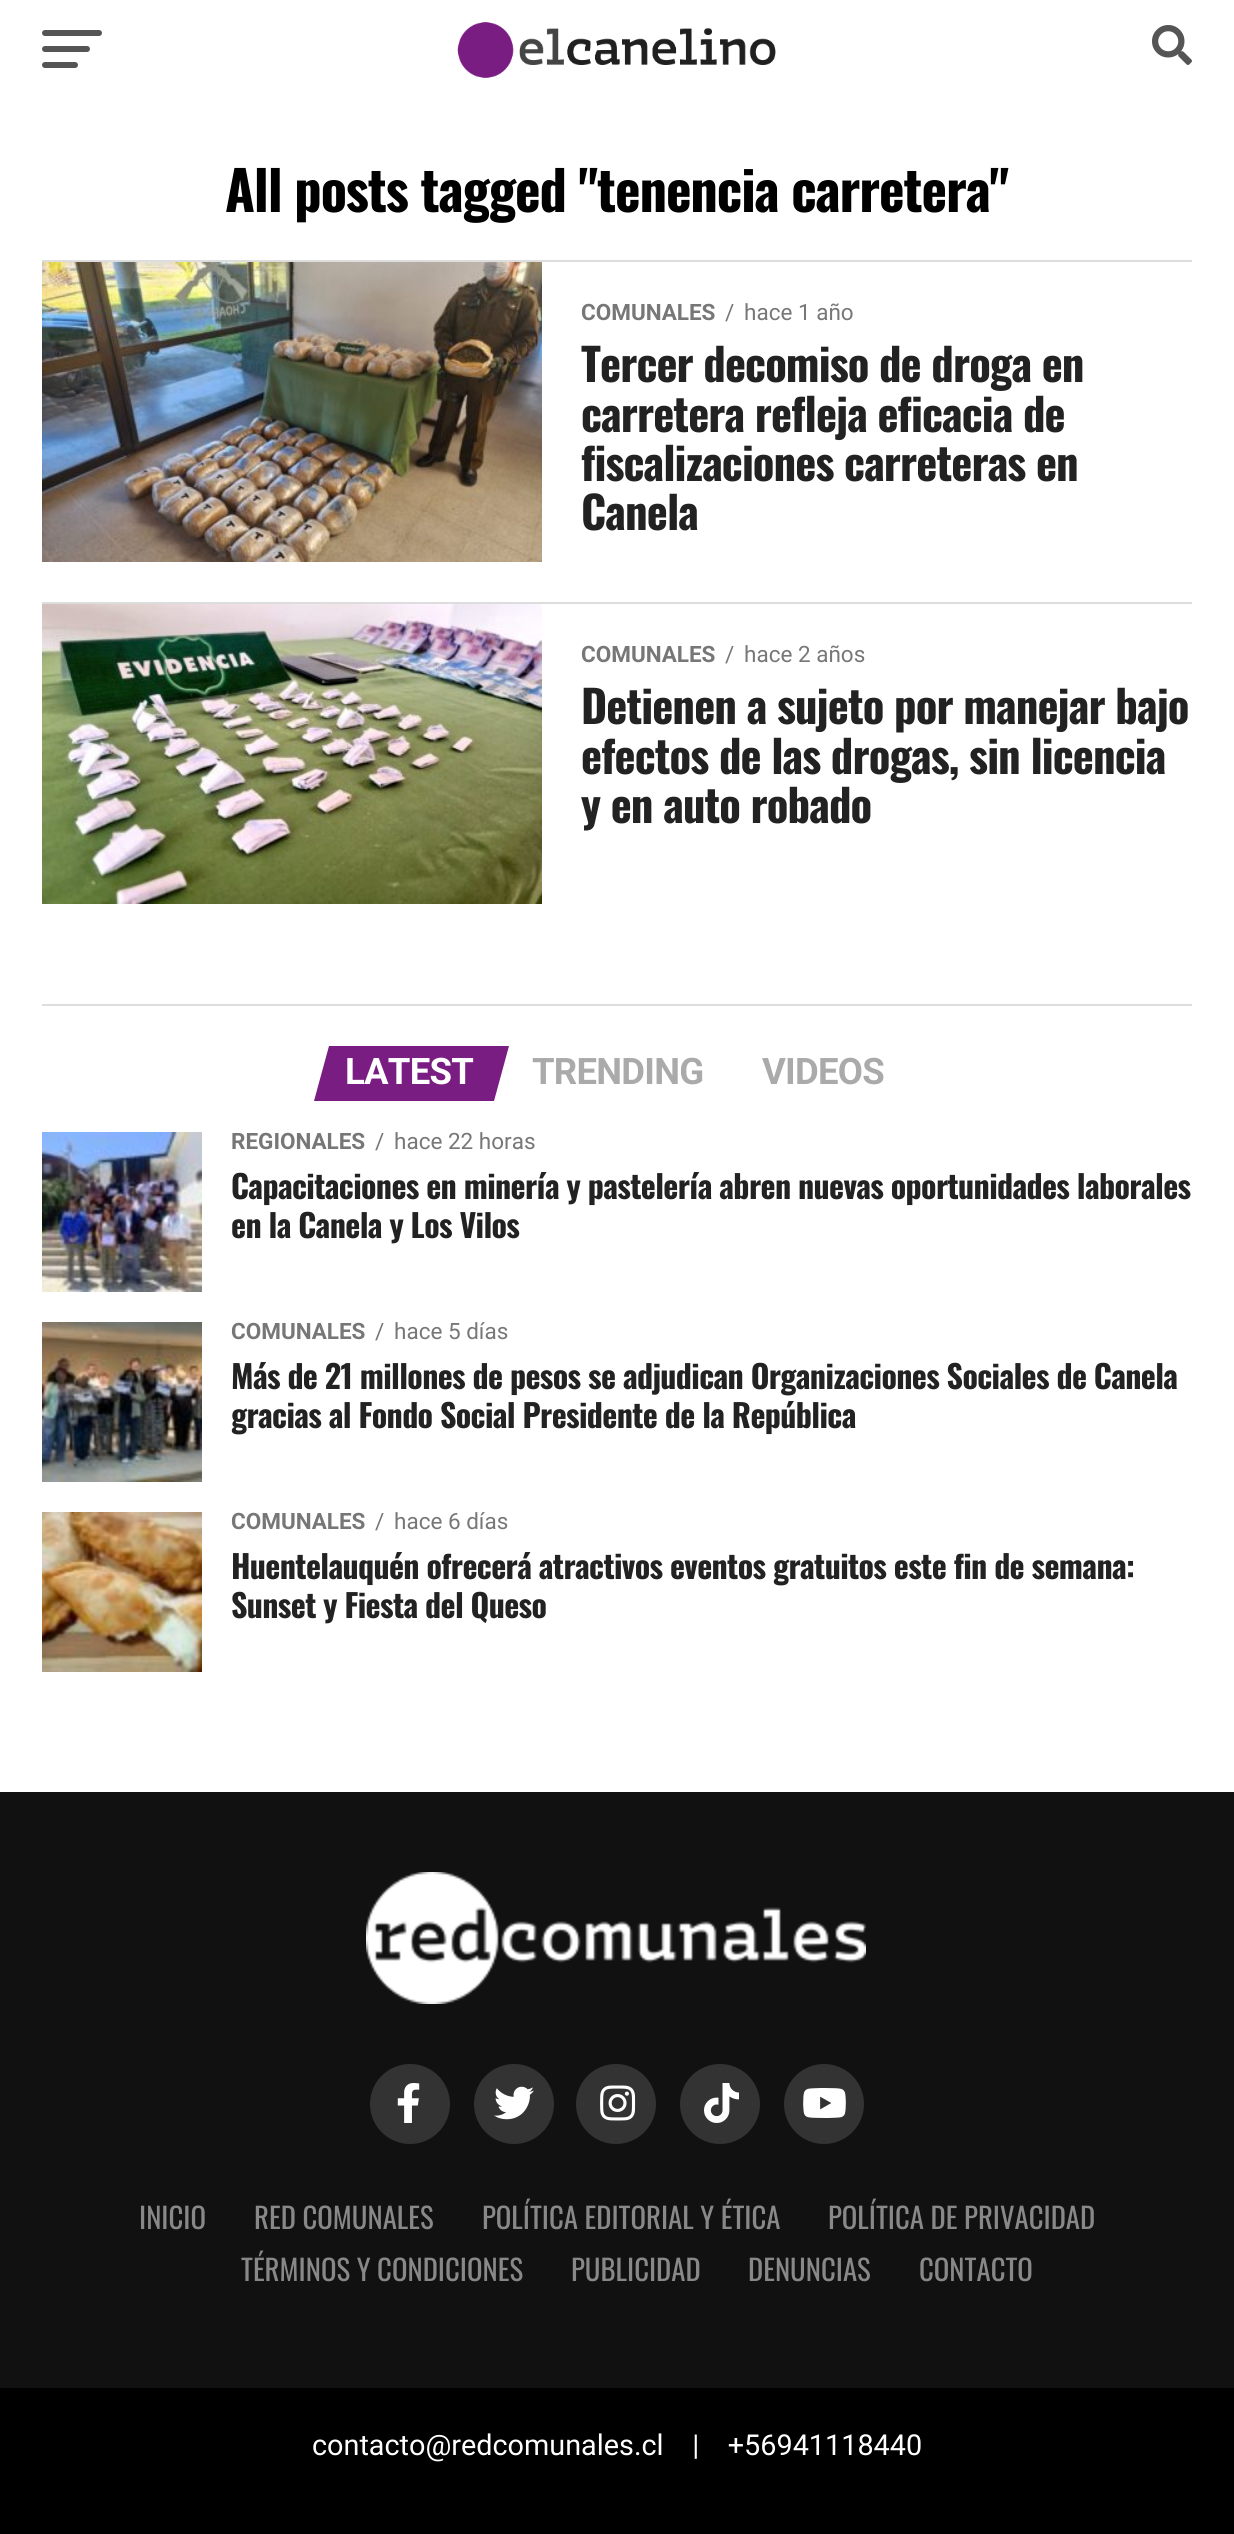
#include <cairo/cairo.h>
#include <math.h>
#include <stddef.h>


static void draw_spaced(cairo_t *cr, double x, double y, const char *s, double letter, double word) {
  cairo_move_to(cr, x, y);
  while (*s) {
    char ch[5] = {0};
    int n = 0;
    do ch[n++] = *s++; while ((*s & 0xC0) == 0x80);
    cairo_show_text(cr, ch);
    cairo_rel_move_to(cr, letter + word * (*ch == ' '), 0);
  }
}

static void rounded_rect(cairo_t *cr, double x, double y, double w, double h, double r) {
  cairo_new_sub_path(cr);
  cairo_arc(cr, x + w - r, y + h - r, r, 0, M_PI / 2);
  cairo_arc(cr, x + r, y + h - r, r, M_PI / 2, M_PI);
  cairo_arc(cr, x + r, y + r, r, M_PI, 1.5 * M_PI);
  cairo_arc(cr, x + w - r, y + r, r, 1.5 * M_PI, 2 * M_PI);
  cairo_close_path(cr);
}

static void draw_image(cairo_t *cr, const char *path, double x, double y, double w, double h) {
  cairo_surface_t *image = cairo_image_surface_create_from_png(path);
  cairo_save(cr);
  cairo_set_source_surface(cr, image, x, y);
  cairo_rectangle(cr, x, y, w, h);
  cairo_fill(cr);
  cairo_restore(cr);
  cairo_surface_destroy(image);
}

static void draw(cairo_t *cr) {
  cairo_set_source_rgb(cr, 1, 1, 1);
  cairo_paint(cr);
  cairo_set_source_rgb(cr, 85 / 255.0, 85 / 255.0, 85 / 255.0);
  rounded_rect(cr, 42, 30, 60, 6, 3);
  cairo_fill(cr);
  rounded_rect(cr, 42, 46, 48, 6, 3);
  cairo_fill(cr);
  rounded_rect(cr, 42, 62, 36, 6, 3);
  cairo_fill(cr);
  draw_image(cr, "images/1.png", 457, 22, 319, 56);
  draw_image(cr, "images/2.png", 1152, 25, 40, 40);
  cairo_set_source_rgb(cr, 221 / 255.0, 221 / 255.0, 221 / 255.0);
  cairo_rectangle(cr, 42, 260, 1150, 2);
  cairo_fill(cr);
  draw_image(cr, "images/3.png", 42, 262, 500, 300);
  cairo_rectangle(cr, 42, 602, 1150, 2);
  cairo_fill(cr);
  draw_image(cr, "images/4.png", 42, 604, 500, 300);
  cairo_rectangle(cr, 42, 1004, 1150, 2);
  cairo_fill(cr);
  cairo_set_source_rgb(cr, 122 / 255.0, 29 / 255.0, 130 / 255.0);
  cairo_new_path(cr);
  cairo_move_to(cr, 329, 1046);
  cairo_line_to(cr, 509, 1046);
  cairo_line_to(cr, 494, 1101);
  cairo_line_to(cr, 314, 1101);
  cairo_close_path(cr);
  cairo_fill(cr);
  draw_image(cr, "images/5.png", 42, 1132, 160, 160);
  draw_image(cr, "images/6.png", 42, 1322, 160, 160);
  draw_image(cr, "images/7.png", 42, 1512, 160, 160);
  cairo_set_source_rgb(cr, 17 / 255.0, 17 / 255.0, 17 / 255.0);
  cairo_rectangle(cr, 0, 1792, 1234, 596);
  cairo_fill(cr);
  draw_image(cr, "images/8.png", 366, 1872, 500, 132);
  cairo_set_source_rgb(cr, 51 / 255.0, 51 / 255.0, 51 / 255.0);
  cairo_arc(cr, 410, 2104, 40, 0, 2 * M_PI);
  cairo_fill(cr);
  draw_image(cr, "images/9.png", 397, 2083, 23, 40);
  cairo_arc(cr, 514, 2104, 40, 0, 2 * M_PI);
  cairo_fill(cr);
  draw_image(cr, "images/10.png", 494, 2086, 40, 34);
  cairo_arc(cr, 616, 2104, 40, 0, 2 * M_PI);
  cairo_fill(cr);
  draw_image(cr, "images/11.png", 600, 2085, 36, 36);
  cairo_arc(cr, 720, 2104, 40, 0, 2 * M_PI);
  cairo_fill(cr);
  draw_image(cr, "images/12.png", 704, 2083, 35, 40);
  cairo_arc(cr, 824, 2104, 40, 0, 2 * M_PI);
  cairo_fill(cr);
  draw_image(cr, "images/13.png", 803, 2088, 43, 30);
  cairo_set_source_rgb(cr, 0, 0, 0);
  cairo_rectangle(cr, 0, 2388, 1234, 146);
  cairo_fill(cr);
  cairo_select_font_face(cr, "Oswald", CAIRO_FONT_SLANT_NORMAL, CAIRO_FONT_WEIGHT_BOLD);
  cairo_set_font_size(cr, 54.4);
  draw_spaced(cr, 225, 212, "All posts tagged \"tenencia carretera\"", -1.1, 0);
  cairo_select_font_face(cr, "Roboto", CAIRO_FONT_SLANT_NORMAL, CAIRO_FONT_WEIGHT_BOLD);
  cairo_set_font_size(cr, 22.5);
  cairo_set_source_rgb(cr, 119 / 255.0, 119 / 255.0, 119 / 255.0);
  cairo_move_to(cr, 581, 320);
  cairo_show_text(cr, "COMUNALES");
  cairo_select_font_face(cr, "Roboto", CAIRO_FONT_SLANT_NORMAL, CAIRO_FONT_WEIGHT_NORMAL);
  cairo_move_to(cr, 725, 320);
  cairo_show_text(cr, "/");
  cairo_move_to(cr, 744, 320);
  cairo_show_text(cr, "hace 1 año");
  cairo_select_font_face(cr, "Oswald", CAIRO_FONT_SLANT_NORMAL, CAIRO_FONT_WEIGHT_BOLD);
  cairo_set_font_size(cr, 44.75);
  cairo_set_source_rgb(cr, 34 / 255.0, 34 / 255.0, 34 / 255.0);
  draw_spaced(cr, 581, 382, "Tercer decomiso de droga en", -0.9, 0);
  draw_spaced(cr, 581, 432, "carretera refleja eficacia de", -0.9, 0);
  draw_spaced(cr, 581, 481, "fiscalizaciones carreteras en", -0.9, 0);
  draw_spaced(cr, 581, 530, "Canela", -0.9, 0);
  cairo_select_font_face(cr, "Roboto", CAIRO_FONT_SLANT_NORMAL, CAIRO_FONT_WEIGHT_BOLD);
  cairo_set_font_size(cr, 22.5);
  cairo_set_source_rgb(cr, 119 / 255.0, 119 / 255.0, 119 / 255.0);
  cairo_move_to(cr, 581, 662);
  cairo_show_text(cr, "COMUNALES");
  cairo_select_font_face(cr, "Roboto", CAIRO_FONT_SLANT_NORMAL, CAIRO_FONT_WEIGHT_NORMAL);
  cairo_move_to(cr, 725, 662);
  cairo_show_text(cr, "/");
  cairo_move_to(cr, 744, 662);
  cairo_show_text(cr, "hace 2 años");
  cairo_select_font_face(cr, "Oswald", CAIRO_FONT_SLANT_NORMAL, CAIRO_FONT_WEIGHT_BOLD);
  cairo_set_font_size(cr, 44.75);
  cairo_set_source_rgb(cr, 34 / 255.0, 34 / 255.0, 34 / 255.0);
  draw_spaced(cr, 581, 724, "Detienen a sujeto por manejar bajo", -0.9, 0);
  draw_spaced(cr, 581, 774, "efectos de las drogas, sin licencia", -0.9, 0);
  draw_spaced(cr, 581, 823, "y en auto robado", -0.9, 0);
  cairo_select_font_face(cr, "Roboto", CAIRO_FONT_SLANT_NORMAL, CAIRO_FONT_WEIGHT_BOLD);
  cairo_set_font_size(cr, 36.5);
  cairo_set_source_rgb(cr, 1, 1, 1);
  draw_spaced(cr, 345, 1084, "LATEST", -0.75, 0);
  cairo_set_source_rgb(cr, 170 / 255.0, 170 / 255.0, 170 / 255.0);
  draw_spaced(cr, 532, 1084, "TRENDING", -0.75, 0);
  draw_spaced(cr, 762, 1084, "VIDEOS", -0.75, 0);
  cairo_set_font_size(cr, 22.5);
  cairo_set_source_rgb(cr, 119 / 255.0, 119 / 255.0, 119 / 255.0);
  cairo_move_to(cr, 231, 1149);
  cairo_show_text(cr, "REGIONALES");
  cairo_select_font_face(cr, "Roboto", CAIRO_FONT_SLANT_NORMAL, CAIRO_FONT_WEIGHT_NORMAL);
  cairo_move_to(cr, 375, 1149);
  cairo_show_text(cr, "/");
  cairo_move_to(cr, 394, 1149);
  cairo_show_text(cr, "hace 22 horas");
  cairo_select_font_face(cr, "Oswald", CAIRO_FONT_SLANT_NORMAL, CAIRO_FONT_WEIGHT_BOLD);
  cairo_set_font_size(cr, 32);
  cairo_set_source_rgb(cr, 34 / 255.0, 34 / 255.0, 34 / 255.0);
  draw_spaced(cr, 231, 1199, "Capacitaciones en minería y pastelería abren nuevas oportunidades laborales", -0.65, 0);
  draw_spaced(cr, 231, 1238, "en la Canela y Los Vilos", -0.65, 0);
  cairo_select_font_face(cr, "Roboto", CAIRO_FONT_SLANT_NORMAL, CAIRO_FONT_WEIGHT_BOLD);
  cairo_set_font_size(cr, 22.5);
  cairo_set_source_rgb(cr, 119 / 255.0, 119 / 255.0, 119 / 255.0);
  cairo_move_to(cr, 231, 1339);
  cairo_show_text(cr, "COMUNALES");
  cairo_select_font_face(cr, "Roboto", CAIRO_FONT_SLANT_NORMAL, CAIRO_FONT_WEIGHT_NORMAL);
  cairo_move_to(cr, 375, 1339);
  cairo_show_text(cr, "/");
  cairo_move_to(cr, 394, 1339);
  cairo_show_text(cr, "hace 5 días");
  cairo_select_font_face(cr, "Oswald", CAIRO_FONT_SLANT_NORMAL, CAIRO_FONT_WEIGHT_BOLD);
  cairo_set_font_size(cr, 32);
  cairo_set_source_rgb(cr, 34 / 255.0, 34 / 255.0, 34 / 255.0);
  draw_spaced(cr, 231, 1389, "Más de 21 millones de pesos se adjudican Organizaciones Sociales de Canela", -0.65, 0);
  draw_spaced(cr, 231, 1428, "gracias al Fondo Social Presidente de la República", -0.65, 0);
  cairo_select_font_face(cr, "Roboto", CAIRO_FONT_SLANT_NORMAL, CAIRO_FONT_WEIGHT_BOLD);
  cairo_set_font_size(cr, 22.5);
  cairo_set_source_rgb(cr, 119 / 255.0, 119 / 255.0, 119 / 255.0);
  cairo_move_to(cr, 231, 1529);
  cairo_show_text(cr, "COMUNALES");
  cairo_select_font_face(cr, "Roboto", CAIRO_FONT_SLANT_NORMAL, CAIRO_FONT_WEIGHT_NORMAL);
  cairo_move_to(cr, 375, 1529);
  cairo_show_text(cr, "/");
  cairo_move_to(cr, 394, 1529);
  cairo_show_text(cr, "hace 6 días");
  cairo_select_font_face(cr, "Oswald", CAIRO_FONT_SLANT_NORMAL, CAIRO_FONT_WEIGHT_BOLD);
  cairo_set_font_size(cr, 32);
  cairo_set_source_rgb(cr, 34 / 255.0, 34 / 255.0, 34 / 255.0);
  draw_spaced(cr, 231, 1579, "Huentelauquén ofrecerá atractivos eventos gratuitos este fin de semana:", -0.65, 0);
  draw_spaced(cr, 231, 1618, "Sunset y Fiesta del Queso", -0.65, 0);
  cairo_select_font_face(cr, "Oswald", CAIRO_FONT_SLANT_NORMAL, CAIRO_FONT_WEIGHT_NORMAL);
  cairo_set_font_size(cr, 28.8);
  cairo_set_source_rgb(cr, 136 / 255.0, 136 / 255.0, 136 / 255.0);
  cairo_move_to(cr, 139, 2229);
  cairo_show_text(cr, "INICIO");
  cairo_move_to(cr, 254, 2229);
  cairo_show_text(cr, "RED COMUNALES");
  cairo_move_to(cr, 482, 2229);
  cairo_show_text(cr, "POLÍTICA EDITORIAL Y ÉTICA");
  cairo_move_to(cr, 828, 2229);
  cairo_show_text(cr, "POLÍTICA DE PRIVACIDAD");
  cairo_move_to(cr, 241, 2281);
  cairo_show_text(cr, "TÉRMINOS Y CONDICIONES");
  cairo_move_to(cr, 571, 2281);
  cairo_show_text(cr, "PUBLICIDAD");
  cairo_move_to(cr, 748, 2281);
  cairo_show_text(cr, "DENUNCIAS");
  cairo_move_to(cr, 919, 2281);
  cairo_show_text(cr, "CONTACTO");
  cairo_select_font_face(cr, "Roboto", CAIRO_FONT_SLANT_NORMAL, CAIRO_FONT_WEIGHT_NORMAL);
  cairo_set_source_rgb(cr, 1, 1, 1);
  cairo_move_to(cr, 312, 2455);
  cairo_show_text(cr, "contacto@redcomunales.cl    |    +56941118440");
}

int main(void) {
  cairo_surface_t *surface = cairo_image_surface_create(CAIRO_FORMAT_RGB24, 1234, 2534);
  cairo_t *cr = cairo_create(surface);
  cairo_font_options_t *options = cairo_font_options_create();
  cairo_font_options_set_hint_metrics(options, CAIRO_HINT_METRICS_OFF);
  cairo_font_options_set_hint_style(options, CAIRO_HINT_STYLE_NONE);
  cairo_set_font_options(cr, options);
  cairo_set_miter_limit(cr, 4);
  draw(cr);
  cairo_surface_write_to_png(surface, "out.png");
  cairo_font_options_destroy(options);
  cairo_destroy(cr);
  cairo_surface_destroy(surface);
  return 0;
}
